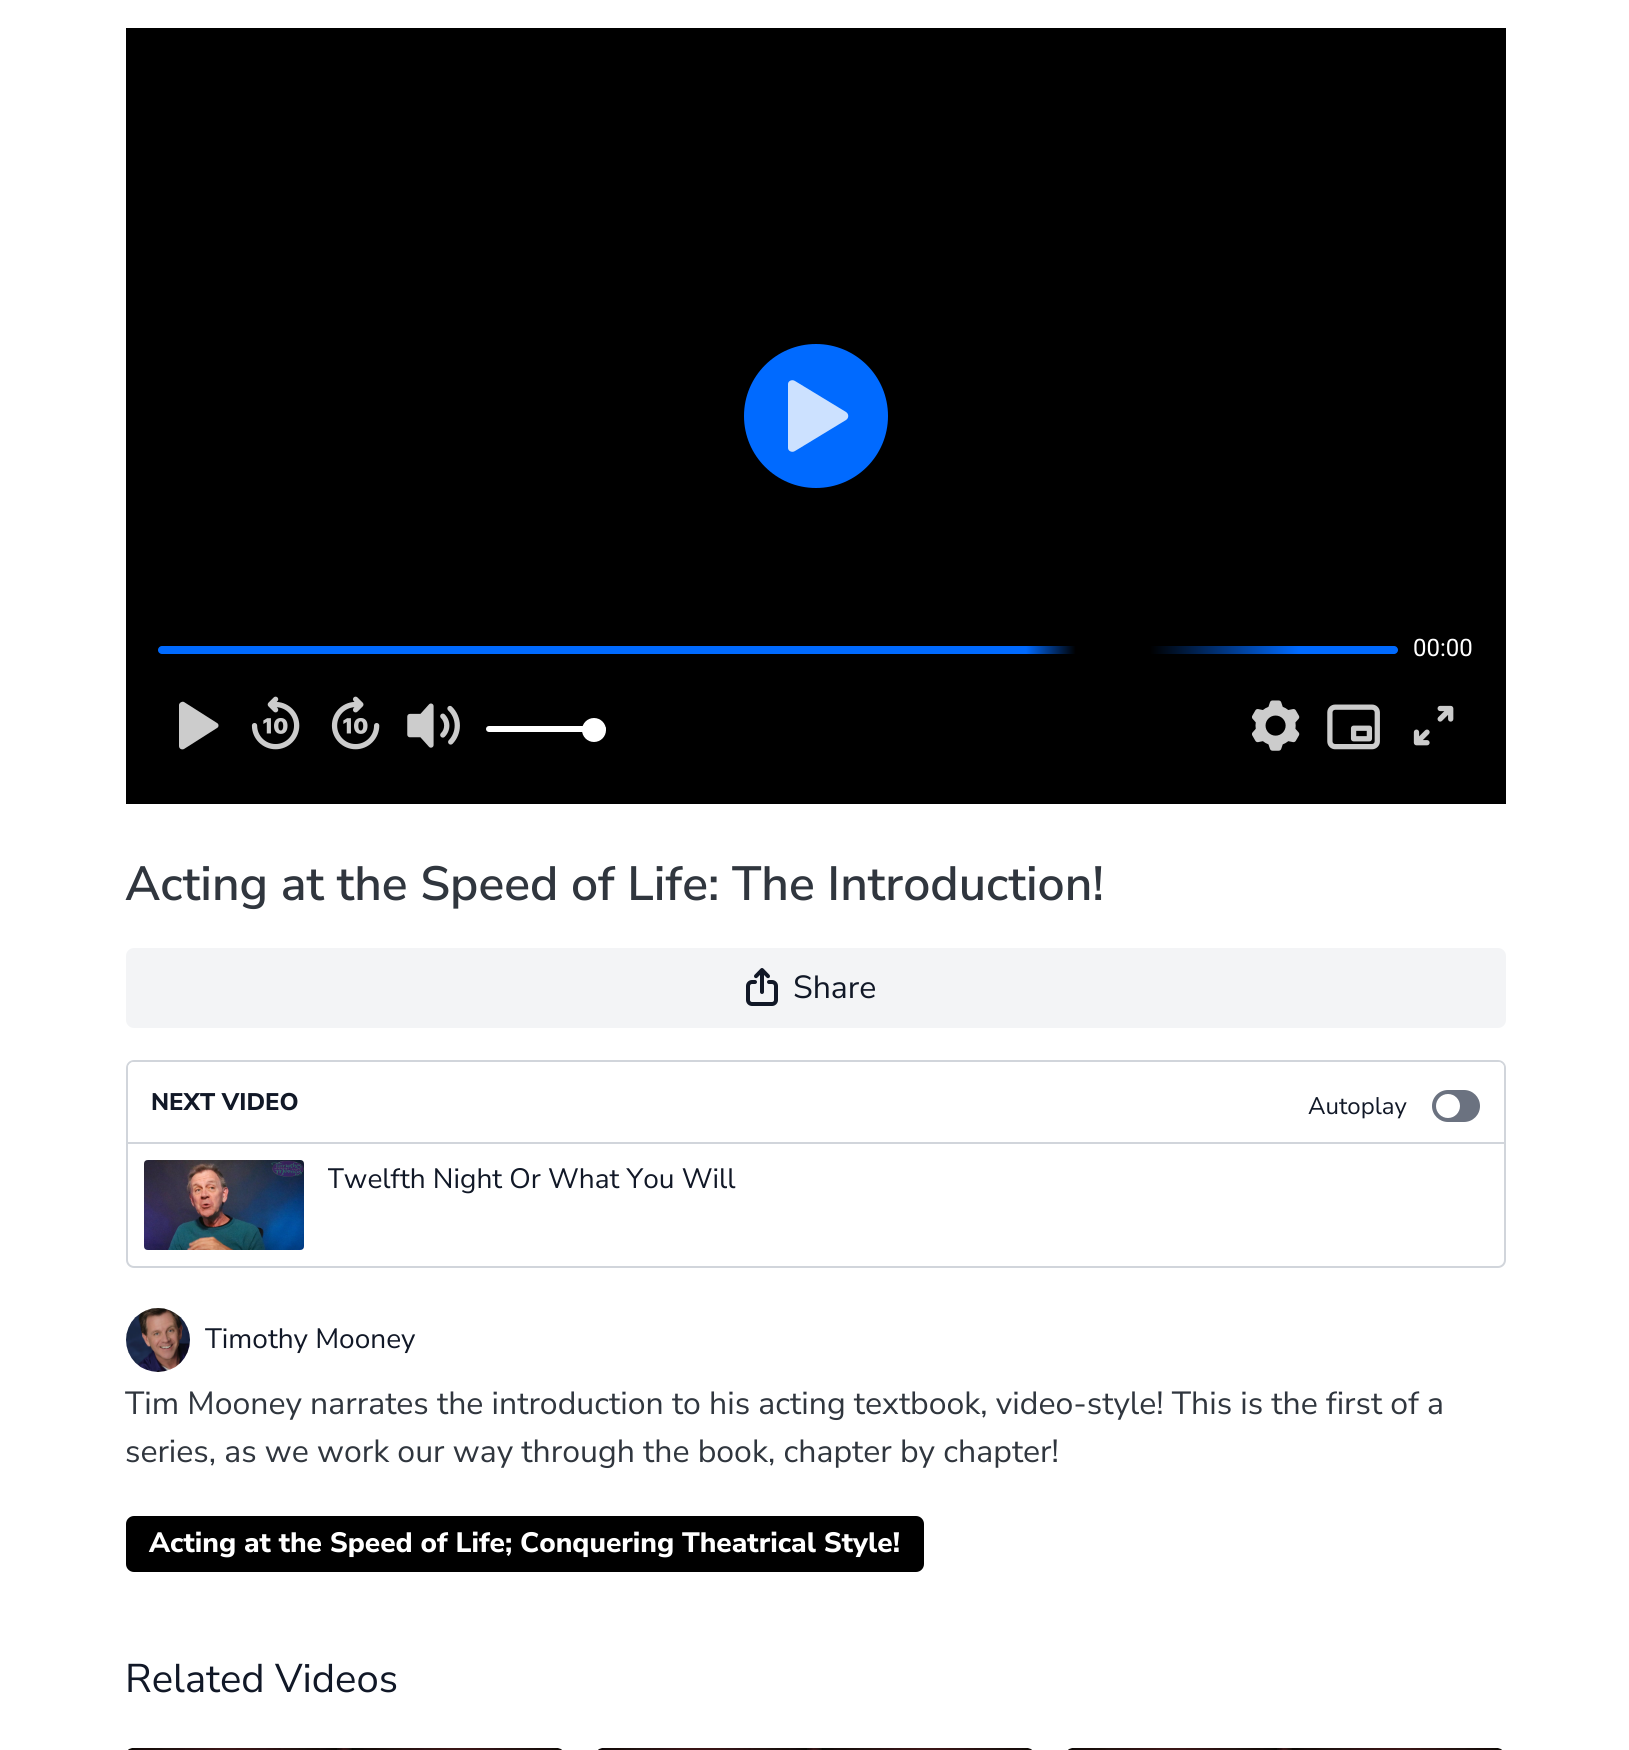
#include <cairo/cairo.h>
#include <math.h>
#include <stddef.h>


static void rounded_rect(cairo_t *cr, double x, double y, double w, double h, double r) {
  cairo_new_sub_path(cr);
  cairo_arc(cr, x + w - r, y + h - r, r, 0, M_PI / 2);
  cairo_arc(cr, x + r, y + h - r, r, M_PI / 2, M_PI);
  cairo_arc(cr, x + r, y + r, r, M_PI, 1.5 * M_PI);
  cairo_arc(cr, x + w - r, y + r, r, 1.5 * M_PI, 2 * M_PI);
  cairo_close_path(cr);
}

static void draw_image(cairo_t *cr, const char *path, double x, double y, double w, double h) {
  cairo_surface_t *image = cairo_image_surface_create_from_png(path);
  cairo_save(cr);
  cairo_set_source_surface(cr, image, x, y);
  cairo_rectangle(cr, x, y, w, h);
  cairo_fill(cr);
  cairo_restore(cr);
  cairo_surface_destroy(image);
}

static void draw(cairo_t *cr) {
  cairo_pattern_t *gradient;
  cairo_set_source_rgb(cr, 1, 1, 1);
  cairo_paint(cr);
  cairo_set_source_rgb(cr, 0, 0, 0);
  cairo_rectangle(cr, 126, 28, 1380, 776);
  cairo_fill(cr);
  cairo_set_source_rgb(cr, 0, 106 / 255.0, 1);
  cairo_arc(cr, 816, 416, 72, 0, 2 * M_PI);
  cairo_fill(cr);
  cairo_set_source_rgb(cr, 204 / 255.0, 225 / 255.0, 1);
  cairo_new_path(cr);
  cairo_move_to(cr, 795, 381);
  cairo_curve_to(cr, 792, 379, 788, 381, 788, 384);
  cairo_line_to(cr, 788, 448);
  cairo_curve_to(cr, 788, 451, 792, 453, 795, 451);
  cairo_line_to(cr, 846, 420);
  cairo_curve_to(cr, 849, 418, 849, 414, 846, 412);
  cairo_close_path(cr);
  cairo_fill(cr);
  gradient = cairo_pattern_create_linear(158, 654, 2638, 654);
  cairo_pattern_add_color_stop_rgba(gradient, 0.35, 0, 106 / 255.0, 1, 1);
  cairo_pattern_add_color_stop_rgba(gradient, 0.37, 0, 0, 0, 1);
  cairo_pattern_add_color_stop_rgba(gradient, 0.4, 0, 0, 0, 1);
  cairo_pattern_add_color_stop_rgba(gradient, 0.46, 0, 106 / 255.0, 1, 1);
  cairo_pattern_add_color_stop_rgba(gradient, 1, 0, 106 / 255.0, 1, 1);
  cairo_set_source(cr, gradient);
  cairo_pattern_destroy(gradient);
  rounded_rect(cr, 158, 646, 1240, 8, 4);
  cairo_fill(cr);
  cairo_set_source_rgb(cr, 204 / 255.0, 204 / 255.0, 204 / 255.0);
  cairo_new_path(cr);
  cairo_move_to(cr, 184, 702);
  cairo_curve_to(cr, 182, 701, 179, 703, 179, 705);
  cairo_line_to(cr, 179, 746);
  cairo_curve_to(cr, 179, 749, 182, 750, 184, 749);
  cairo_line_to(cr, 217, 728);
  cairo_curve_to(cr, 219, 727, 219, 724, 217, 723);
  cairo_close_path(cr);
  cairo_fill(cr);
  draw_image(cr, "images/1.png", 251, 696, 49, 54);
  draw_image(cr, "images/2.png", 331, 696, 49, 54);
  draw_image(cr, "images/3.png", 407, 703, 53, 45);
  cairo_set_source_rgb(cr, 1, 1, 1);
  rounded_rect(cr, 486, 726, 120, 6, 3);
  cairo_fill(cr);
  cairo_arc(cr, 594, 730, 12, 0, 2 * M_PI);
  cairo_fill(cr);
  draw_image(cr, "images/4.png", 1252, 700, 48, 51);
  draw_image(cr, "images/5.png", 1327, 704, 53, 46);
  draw_image(cr, "images/6.png", 1413, 705, 41, 41);
  cairo_set_source_rgb(cr, 243 / 255.0, 244 / 255.0, 246 / 255.0);
  rounded_rect(cr, 126, 948, 1380, 80, 8);
  cairo_fill(cr);
  draw_image(cr, "images/7.png", 746, 968, 32, 38);
  rounded_rect(cr, 127, 1061, 1378, 206, 7);
  cairo_set_source_rgb(cr, 209 / 255.0, 213 / 255.0, 219 / 255.0);
  cairo_stroke(cr);
  cairo_set_source_rgb(cr, 1, 1, 1);
  cairo_new_path(cr);
  cairo_move_to(cr, 134, 1062);
  cairo_line_to(cr, 1498, 1062);
  cairo_curve_to(cr, 1501.5, 1062, 1504, 1064.5, 1504, 1068);
  cairo_line_to(cr, 1504, 1142);
  cairo_line_to(cr, 128, 1142);
  cairo_line_to(cr, 128, 1068);
  cairo_curve_to(cr, 128, 1064.5, 130.5, 1062, 134, 1062);
  cairo_close_path(cr);
  cairo_fill(cr);
  cairo_set_source_rgb(cr, 209 / 255.0, 213 / 255.0, 219 / 255.0);
  cairo_rectangle(cr, 128, 1142, 1376, 2);
  cairo_fill(cr);
  cairo_set_source_rgb(cr, 107 / 255.0, 114 / 255.0, 128 / 255.0);
  rounded_rect(cr, 1432, 1090, 48, 32, 16);
  cairo_fill(cr);
  cairo_set_source_rgb(cr, 1, 1, 1);
  cairo_arc(cr, 1448, 1106, 12, 0, 2 * M_PI);
  cairo_fill(cr);
  draw_image(cr, "images/8.png", 144, 1160, 160, 90);
  draw_image(cr, "images/9.png", 126, 1308, 64, 64);
  cairo_set_source_rgb(cr, 0, 0, 0);
  rounded_rect(cr, 126, 1516, 798, 56, 8);
  cairo_fill(cr);
  draw_image(cr, "images/10.png", 128, 1748, 434, 2);
  draw_image(cr, "images/11.png", 598, 1748, 434, 2);
  draw_image(cr, "images/12.png", 1068, 1748, 434, 2);
  cairo_select_font_face(cr, "Roboto", CAIRO_FONT_SLANT_NORMAL, CAIRO_FONT_WEIGHT_NORMAL);
  cairo_set_font_size(cr, 24);
  cairo_set_source_rgb(cr, 1, 1, 1);
  cairo_move_to(cr, 1413, 656);
  cairo_show_text(cr, "00:00");
  cairo_select_font_face(cr, "Nunito Sans SemiBold", CAIRO_FONT_SLANT_NORMAL, CAIRO_FONT_WEIGHT_NORMAL);
  cairo_set_font_size(cr, 48);
  cairo_set_source_rgb(cr, 48 / 255.0, 54 / 255.0, 62 / 255.0);
  cairo_move_to(cr, 125, 900);
  cairo_show_text(cr, "Acting at the Speed of Life: The Introduction!");
  cairo_select_font_face(cr, "Nunito Sans", CAIRO_FONT_SLANT_NORMAL, CAIRO_FONT_WEIGHT_NORMAL);
  cairo_set_font_size(cr, 32);
  cairo_set_source_rgb(cr, 17 / 255.0, 24 / 255.0, 39 / 255.0);
  cairo_move_to(cr, 793, 998);
  cairo_show_text(cr, "Share");
  cairo_select_font_face(cr, "Nunito Sans ExtraBold", CAIRO_FONT_SLANT_NORMAL, CAIRO_FONT_WEIGHT_NORMAL);
  cairo_set_font_size(cr, 24);
  cairo_move_to(cr, 151, 1110);
  cairo_show_text(cr, "NEXT VIDEO");
  cairo_select_font_face(cr, "Nunito Sans", CAIRO_FONT_SLANT_NORMAL, CAIRO_FONT_WEIGHT_NORMAL);
  cairo_move_to(cr, 1308, 1114);
  cairo_show_text(cr, "Autoplay");
  cairo_save(cr);
  cairo_rectangle(cr, 328, 1160, 408, 90);
  cairo_clip(cr);
  cairo_set_font_size(cr, 28);
  cairo_move_to(cr, 327, 1188);
  cairo_show_text(cr, "Twelfth Night Or What You Will");
  cairo_restore(cr);
  cairo_set_font_size(cr, 28);
  cairo_move_to(cr, 205, 1348);
  cairo_show_text(cr, "Timothy Mooney");
  cairo_set_font_size(cr, 32);
  cairo_set_source_rgb(cr, 48 / 255.0, 54 / 255.0, 62 / 255.0);
  cairo_move_to(cr, 125, 1414);
  cairo_show_text(cr, "Tim Mooney narrates the introduction to his acting textbook, video-style! This is the first of a");
  cairo_move_to(cr, 125, 1462);
  cairo_show_text(cr, "series, as we work our way through the book, chapter by chapter!");
  cairo_select_font_face(cr, "Nunito Sans ExtraBold", CAIRO_FONT_SLANT_NORMAL, CAIRO_FONT_WEIGHT_NORMAL);
  cairo_set_font_size(cr, 28);
  cairo_set_source_rgb(cr, 1, 1, 1);
  cairo_move_to(cr, 149, 1552);
  cairo_show_text(cr, "Acting at the Speed of Life; Conquering Theatrical Style!");
  cairo_select_font_face(cr, "Nunito Sans", CAIRO_FONT_SLANT_NORMAL, CAIRO_FONT_WEIGHT_NORMAL);
  cairo_set_font_size(cr, 40);
  cairo_set_source_rgb(cr, 17 / 255.0, 24 / 255.0, 39 / 255.0);
  cairo_move_to(cr, 125, 1692);
  cairo_show_text(cr, "Related Videos");
}

int main(void) {
  cairo_surface_t *surface = cairo_image_surface_create(CAIRO_FORMAT_RGB24, 1629, 1750);
  cairo_t *cr = cairo_create(surface);
  cairo_font_options_t *options = cairo_font_options_create();
  cairo_font_options_set_hint_metrics(options, CAIRO_HINT_METRICS_OFF);
  cairo_font_options_set_hint_style(options, CAIRO_HINT_STYLE_NONE);
  cairo_set_font_options(cr, options);
  cairo_set_miter_limit(cr, 4);
  draw(cr);
  cairo_surface_write_to_png(surface, "out.png");
  cairo_font_options_destroy(options);
  cairo_destroy(cr);
  cairo_surface_destroy(surface);
  return 0;
}
